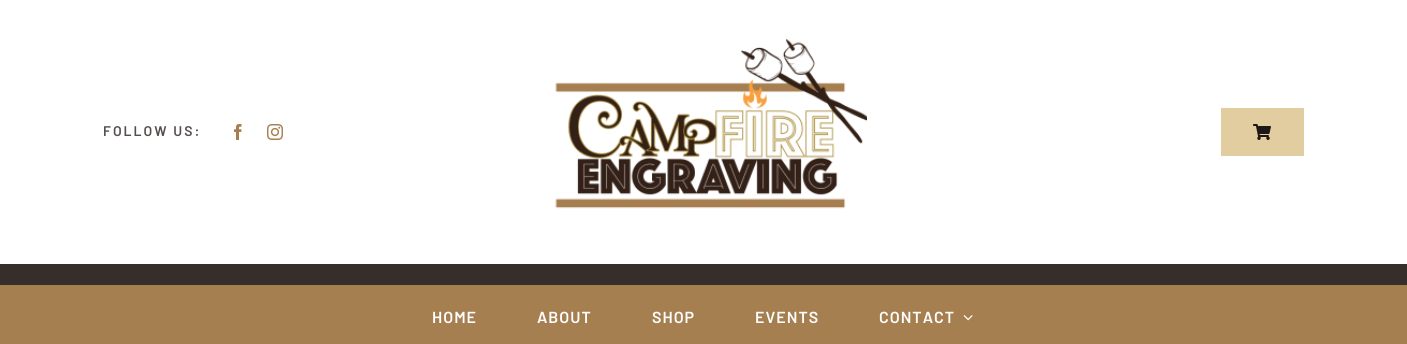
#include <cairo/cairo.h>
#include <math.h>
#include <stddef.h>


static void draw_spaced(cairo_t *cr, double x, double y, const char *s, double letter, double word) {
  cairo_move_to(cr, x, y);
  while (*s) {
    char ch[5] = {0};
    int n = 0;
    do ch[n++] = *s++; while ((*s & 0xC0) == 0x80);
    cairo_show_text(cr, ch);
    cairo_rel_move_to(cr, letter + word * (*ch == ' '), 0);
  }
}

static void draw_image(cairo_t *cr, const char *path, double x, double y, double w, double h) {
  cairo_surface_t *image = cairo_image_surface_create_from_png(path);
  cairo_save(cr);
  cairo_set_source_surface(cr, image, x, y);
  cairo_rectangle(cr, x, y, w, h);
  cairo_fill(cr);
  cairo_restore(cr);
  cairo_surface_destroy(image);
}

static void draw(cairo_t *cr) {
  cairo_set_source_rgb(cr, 1, 1, 1);
  cairo_paint(cr);
  draw_image(cr, "images/1.png", 234, 124, 8, 16);
  draw_image(cr, "images/2.png", 267, 124, 16, 16);
  draw_image(cr, "images/3.png", 555, 39, 312, 170);
  cairo_set_source_rgb(cr, 225 / 255.0, 205 / 255.0, 160 / 255.0);
  cairo_rectangle(cr, 1221, 108, 83, 48);
  cairo_fill(cr);
  draw_image(cr, "images/4.png", 1253, 124, 18, 16);
  cairo_set_source_rgb(cr, 53 / 255.0, 46 / 255.0, 43 / 255.0);
  cairo_rectangle(cr, 0, 264, 1407, 21);
  cairo_fill(cr);
  cairo_set_source_rgb(cr, 166 / 255.0, 127 / 255.0, 81 / 255.0);
  cairo_rectangle(cr, 0, 285, 1407, 59);
  cairo_fill(cr);
  draw_image(cr, "images/5.png", 963, 315, 10, 6);
  cairo_select_font_face(cr, "Barlow SemiBold", CAIRO_FONT_SLANT_NORMAL, CAIRO_FONT_WEIGHT_NORMAL);
  cairo_set_font_size(cr, 14);
  cairo_set_source_rgb(cr, 84 / 255.0, 78 / 255.0, 76 / 255.0);
  draw_spaced(cr, 103, 136, "FOLLOW US:", 2, 0);
  cairo_set_font_size(cr, 16);
  cairo_set_source_rgb(cr, 1, 1, 1);
  draw_spaced(cr, 432, 323, "HOME", 1, 0);
  draw_spaced(cr, 537, 323, "ABOUT", 1, 0);
  draw_spaced(cr, 652, 323, "SHOP", 1, 0);
  draw_spaced(cr, 755, 323, "EVENTS", 1, 0);
  draw_spaced(cr, 879, 323, "CONTACT", 1, 0);
}

int main(void) {
  cairo_surface_t *surface = cairo_image_surface_create(CAIRO_FORMAT_RGB24, 1407, 344);
  cairo_t *cr = cairo_create(surface);
  cairo_font_options_t *options = cairo_font_options_create();
  cairo_font_options_set_hint_metrics(options, CAIRO_HINT_METRICS_OFF);
  cairo_font_options_set_hint_style(options, CAIRO_HINT_STYLE_NONE);
  cairo_set_font_options(cr, options);
  cairo_set_miter_limit(cr, 4);
  draw(cr);
  cairo_surface_write_to_png(surface, "out.png");
  cairo_font_options_destroy(options);
  cairo_destroy(cr);
  cairo_surface_destroy(surface);
  return 0;
}
